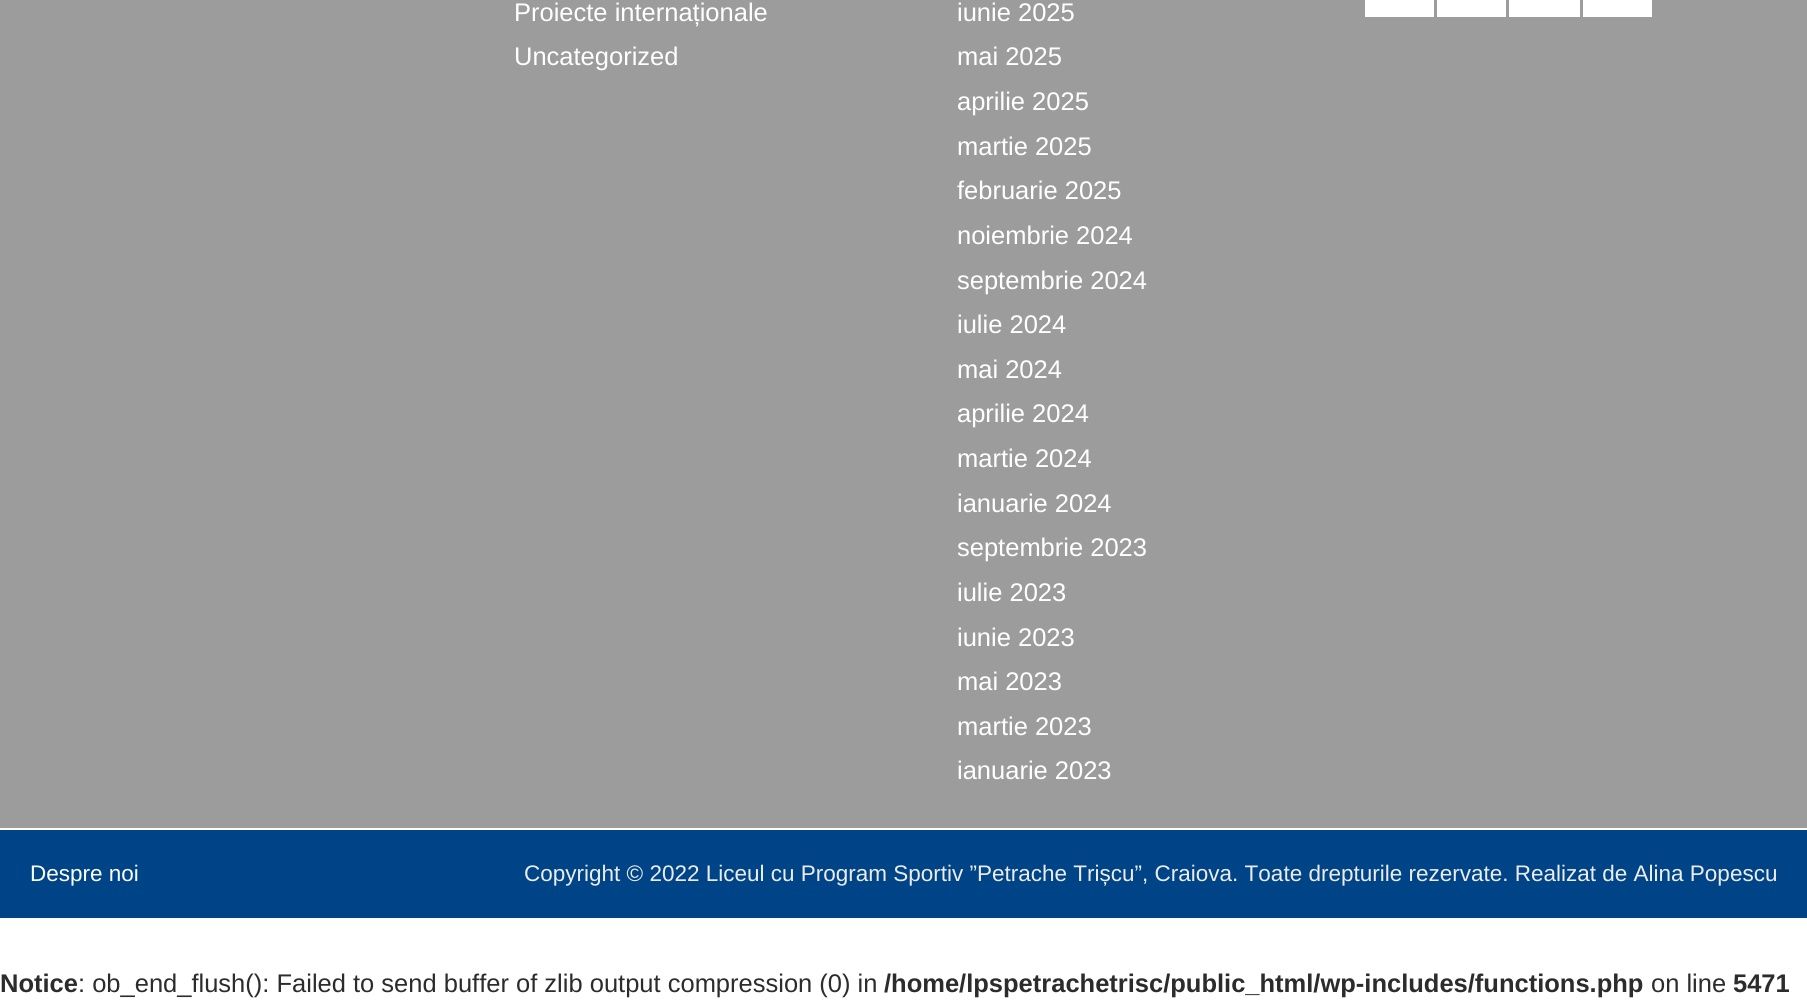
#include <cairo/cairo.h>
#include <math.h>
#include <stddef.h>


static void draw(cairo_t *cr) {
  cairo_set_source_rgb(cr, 1, 1, 1);
  cairo_paint(cr);
  cairo_set_source_rgb(cr, 156 / 255.0, 156 / 255.0, 156 / 255.0);
  cairo_rectangle(cr, 0, 0, 1807, 828);
  cairo_fill(cr);
  cairo_set_source_rgb(cr, 1, 1, 1);
  cairo_rectangle(cr, 1365, 0, 69, 17);
  cairo_fill(cr);
  cairo_rectangle(cr, 1437, 0, 69, 17);
  cairo_fill(cr);
  cairo_rectangle(cr, 1509, 0, 71, 17);
  cairo_fill(cr);
  cairo_rectangle(cr, 1583, 0, 69, 17);
  cairo_fill(cr);
  cairo_set_source_rgb(cr, 0, 68 / 255.0, 136 / 255.0);
  cairo_rectangle(cr, 0, 830, 1807, 88);
  cairo_fill(cr);
  cairo_select_font_face(cr, "Liberation Sans", CAIRO_FONT_SLANT_NORMAL, CAIRO_FONT_WEIGHT_NORMAL);
  cairo_set_font_size(cr, 25.5);
  cairo_set_source_rgb(cr, 1, 1, 1);
  cairo_move_to(cr, 514, 21);
  cairo_show_text(cr, "Proiecte internaționale");
  cairo_move_to(cr, 514, 65);
  cairo_show_text(cr, "Uncategorized");
  cairo_move_to(cr, 957, 21);
  cairo_show_text(cr, "iunie 2025");
  cairo_move_to(cr, 957, 65);
  cairo_show_text(cr, "mai 2025");
  cairo_move_to(cr, 957, 110);
  cairo_show_text(cr, "aprilie 2025");
  cairo_move_to(cr, 957, 155);
  cairo_show_text(cr, "martie 2025");
  cairo_move_to(cr, 957, 199);
  cairo_show_text(cr, "februarie 2025");
  cairo_move_to(cr, 957, 244);
  cairo_show_text(cr, "noiembrie 2024");
  cairo_move_to(cr, 957, 289);
  cairo_show_text(cr, "septembrie 2024");
  cairo_move_to(cr, 957, 333);
  cairo_show_text(cr, "iulie 2024");
  cairo_move_to(cr, 957, 378);
  cairo_show_text(cr, "mai 2024");
  cairo_move_to(cr, 957, 422);
  cairo_show_text(cr, "aprilie 2024");
  cairo_move_to(cr, 957, 467);
  cairo_show_text(cr, "martie 2024");
  cairo_move_to(cr, 957, 512);
  cairo_show_text(cr, "ianuarie 2024");
  cairo_move_to(cr, 957, 556);
  cairo_show_text(cr, "septembrie 2023");
  cairo_move_to(cr, 957, 601);
  cairo_show_text(cr, "iulie 2023");
  cairo_move_to(cr, 957, 646);
  cairo_show_text(cr, "iunie 2023");
  cairo_move_to(cr, 957, 690);
  cairo_show_text(cr, "mai 2023");
  cairo_move_to(cr, 957, 735);
  cairo_show_text(cr, "martie 2023");
  cairo_move_to(cr, 957, 779);
  cairo_show_text(cr, "ianuarie 2023");
  cairo_set_font_size(cr, 22.5);
  cairo_move_to(cr, 30, 881);
  cairo_show_text(cr, "Despre noi");
  cairo_set_source_rgb(cr, 236 / 255.0, 236 / 255.0, 236 / 255.0);
  cairo_move_to(cr, 524, 881);
  cairo_show_text(cr, "Copyright © 2022 Liceul cu Program Sportiv ”Petrache Trișcu”, Craiova. Toate drepturile rezervate. Realizat de Alina Popescu");
  cairo_select_font_face(cr, "Liberation Sans", CAIRO_FONT_SLANT_NORMAL, CAIRO_FONT_WEIGHT_BOLD);
  cairo_set_font_size(cr, 25.5);
  cairo_set_source_rgb(cr, 44 / 255.0, 44 / 255.0, 44 / 255.0);
  cairo_move_to(cr, 0, 992);
  cairo_show_text(cr, "Notice");
  cairo_select_font_face(cr, "Liberation Sans", CAIRO_FONT_SLANT_NORMAL, CAIRO_FONT_WEIGHT_NORMAL);
  cairo_move_to(cr, 78, 992);
  cairo_show_text(cr, ": ob_end_flush(): Failed to send buffer of zlib output compression (0) in");
  cairo_select_font_face(cr, "Liberation Sans", CAIRO_FONT_SLANT_NORMAL, CAIRO_FONT_WEIGHT_BOLD);
  cairo_move_to(cr, 884, 992);
  cairo_show_text(cr, "/home/lpspetrachetrisc/public_html/wp-includes/functions.php");
  cairo_select_font_face(cr, "Liberation Sans", CAIRO_FONT_SLANT_NORMAL, CAIRO_FONT_WEIGHT_NORMAL);
  cairo_move_to(cr, 1651, 992);
  cairo_show_text(cr, "on line");
  cairo_select_font_face(cr, "Liberation Sans", CAIRO_FONT_SLANT_NORMAL, CAIRO_FONT_WEIGHT_BOLD);
  cairo_move_to(cr, 1733, 992);
  cairo_show_text(cr, "5471");
}

int main(void) {
  cairo_surface_t *surface = cairo_image_surface_create(CAIRO_FORMAT_RGB24, 1807, 1006);
  cairo_t *cr = cairo_create(surface);
  cairo_font_options_t *options = cairo_font_options_create();
  cairo_font_options_set_hint_metrics(options, CAIRO_HINT_METRICS_OFF);
  cairo_font_options_set_hint_style(options, CAIRO_HINT_STYLE_NONE);
  cairo_set_font_options(cr, options);
  cairo_set_miter_limit(cr, 4);
  draw(cr);
  cairo_surface_write_to_png(surface, "out.png");
  cairo_font_options_destroy(options);
  cairo_destroy(cr);
  cairo_surface_destroy(surface);
  return 0;
}
